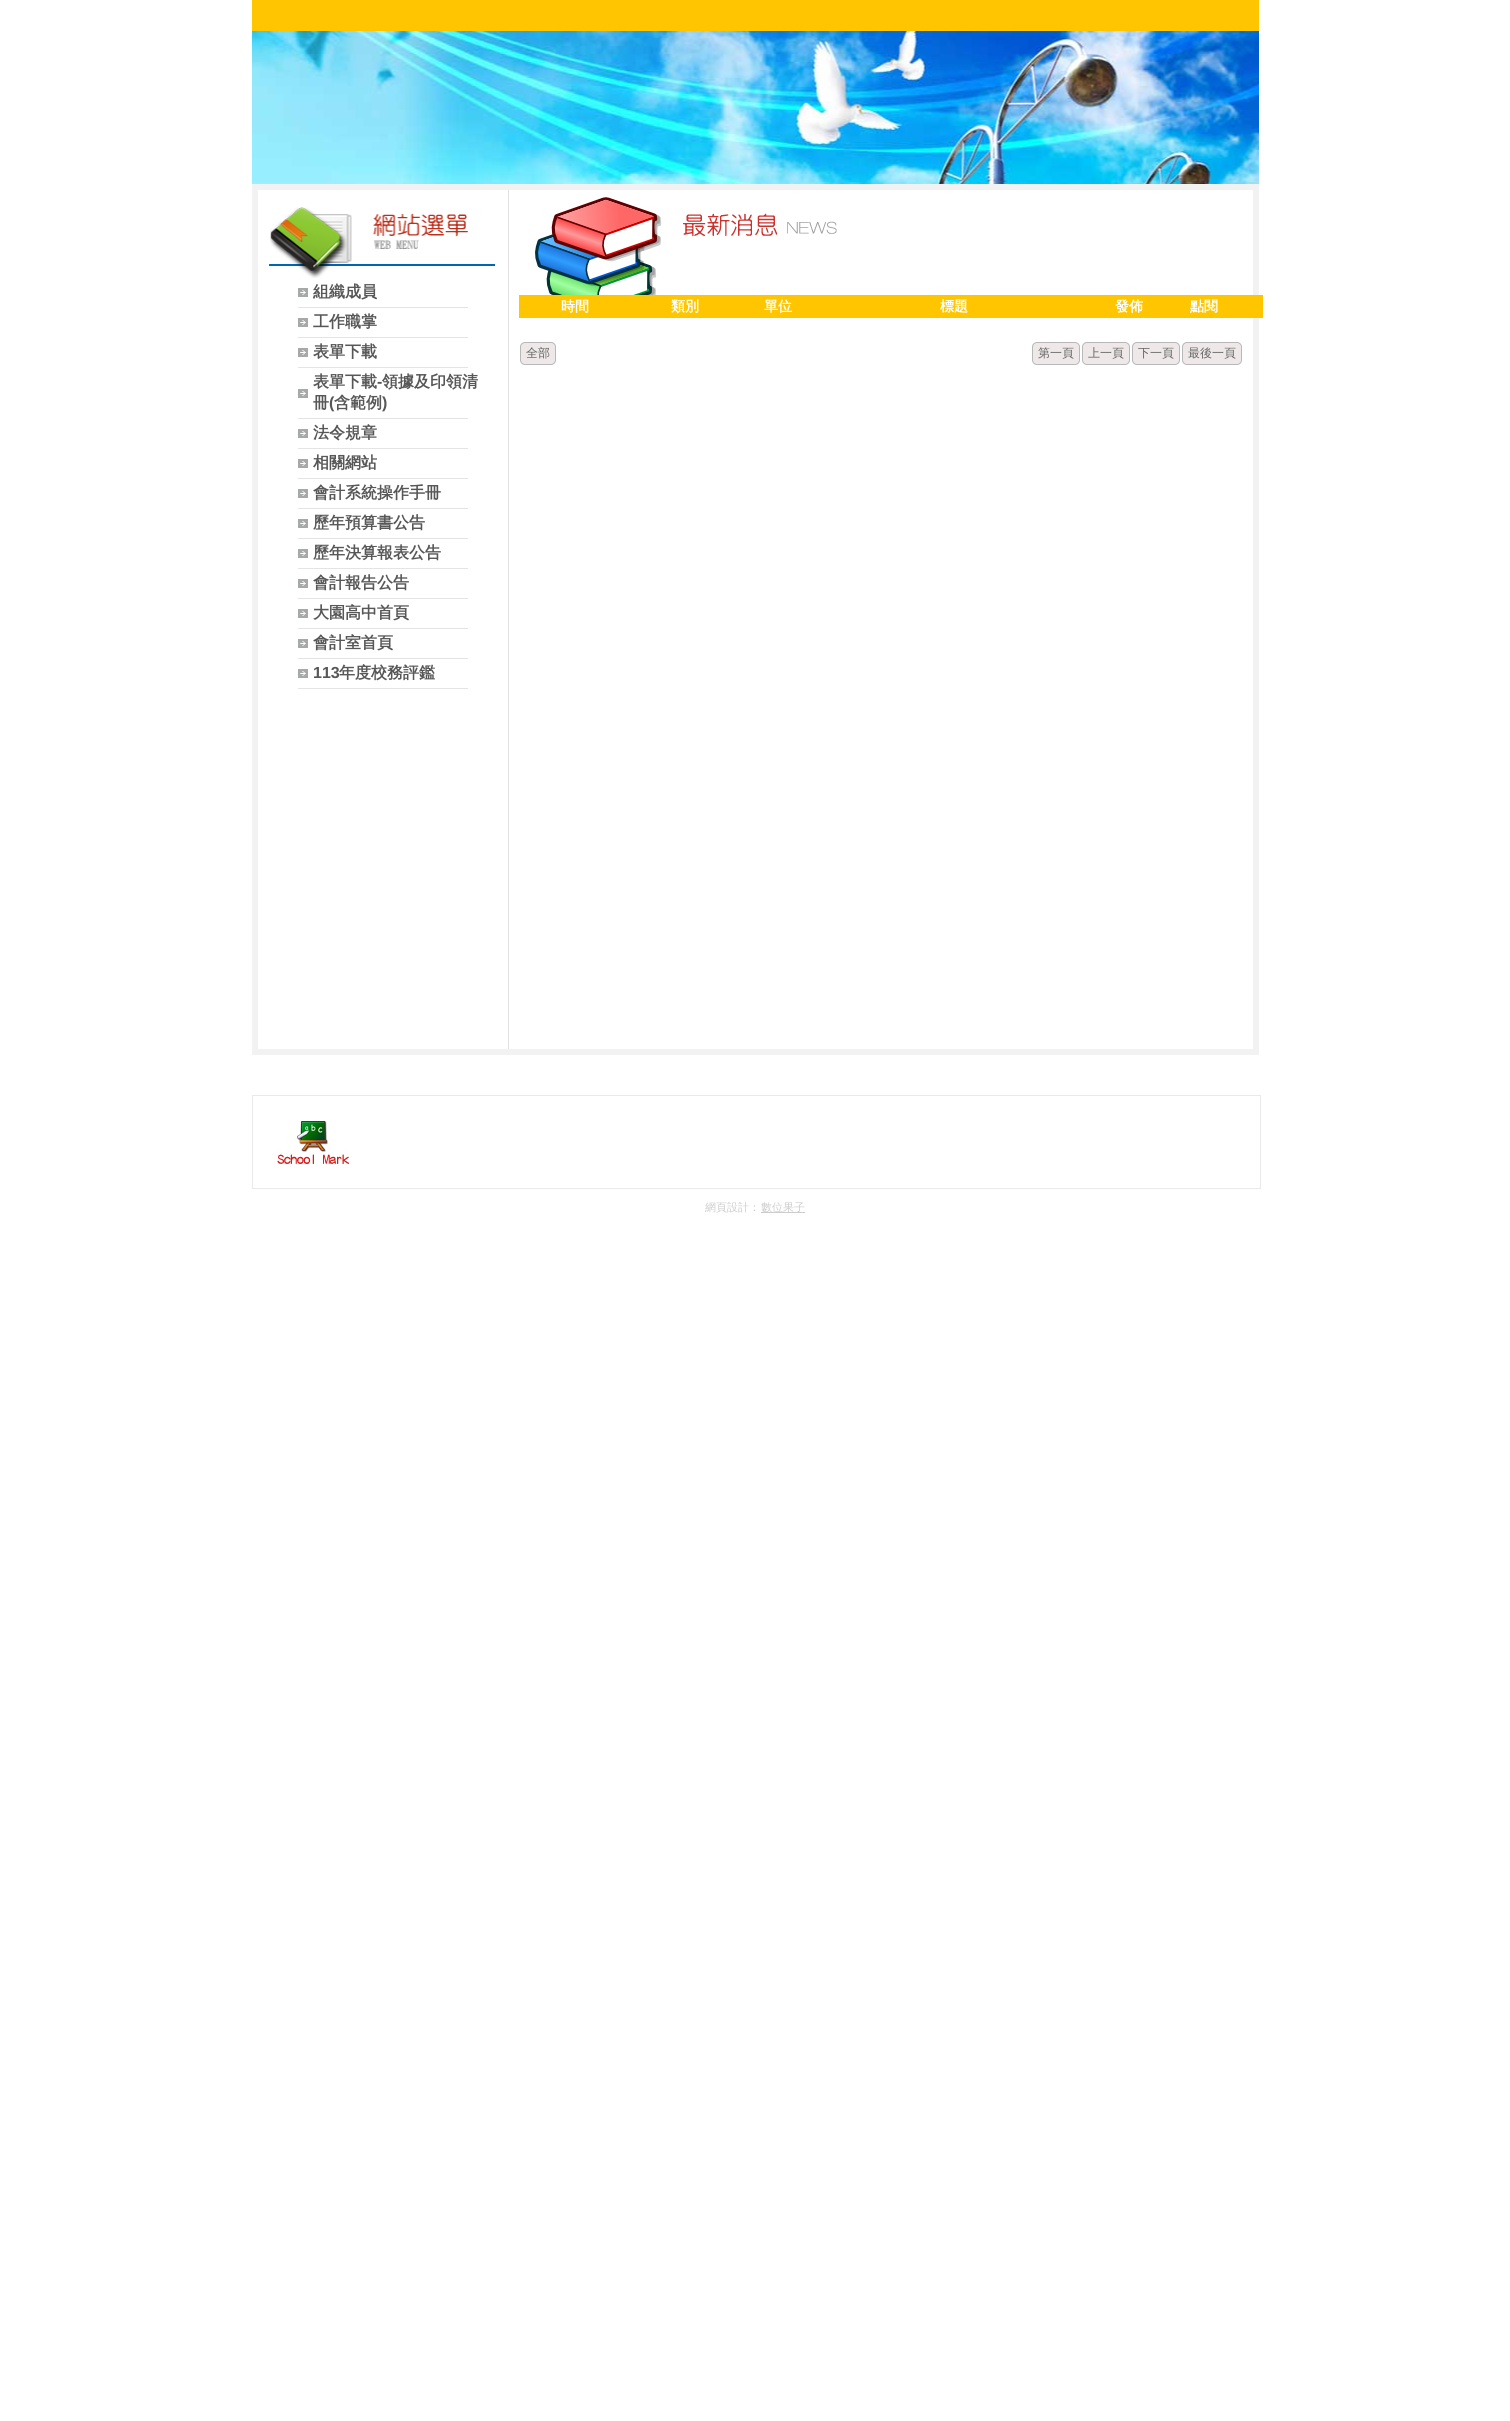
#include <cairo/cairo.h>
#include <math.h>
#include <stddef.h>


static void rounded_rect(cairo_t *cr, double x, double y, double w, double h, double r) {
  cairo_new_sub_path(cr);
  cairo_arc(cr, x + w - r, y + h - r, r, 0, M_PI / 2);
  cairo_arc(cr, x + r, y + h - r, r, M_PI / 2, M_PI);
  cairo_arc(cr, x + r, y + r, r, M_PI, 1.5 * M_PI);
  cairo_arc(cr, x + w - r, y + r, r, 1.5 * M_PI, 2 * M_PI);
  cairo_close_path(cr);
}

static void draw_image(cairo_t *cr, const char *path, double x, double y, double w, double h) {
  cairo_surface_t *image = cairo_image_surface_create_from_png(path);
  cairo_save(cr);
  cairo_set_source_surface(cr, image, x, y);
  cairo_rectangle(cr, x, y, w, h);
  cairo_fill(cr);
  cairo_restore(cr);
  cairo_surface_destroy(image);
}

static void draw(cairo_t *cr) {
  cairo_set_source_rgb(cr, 1, 1, 1);
  cairo_paint(cr);
  cairo_set_source_rgb(cr, 1, 198 / 255.0, 0);
  cairo_rectangle(cr, 252, 0, 1007, 31);
  cairo_fill(cr);
  draw_image(cr, "images/1.png", 252, 31, 1007, 153);
  cairo_rectangle(cr, 255, 187, 1001, 865);
  cairo_set_source_rgb(cr, 242 / 255.0, 242 / 255.0, 242 / 255.0);
  cairo_set_line_width(cr, 6);
  cairo_stroke(cr);
  draw_image(cr, "images/2.png", 269, 207, 226, 71);
  cairo_set_source_rgb(cr, 228 / 255.0, 228 / 255.0, 228 / 255.0);
  cairo_rectangle(cr, 298, 307, 170, 1);
  cairo_fill(cr);
  draw_image(cr, "images/3.png", 298, 288, 10, 9);
  cairo_rectangle(cr, 298, 337, 170, 1);
  cairo_fill(cr);
  draw_image(cr, "images/3.png", 298, 318, 10, 9);
  cairo_rectangle(cr, 298, 367, 170, 1);
  cairo_fill(cr);
  draw_image(cr, "images/3.png", 298, 348, 10, 9);
  cairo_rectangle(cr, 298, 418, 170, 1);
  cairo_fill(cr);
  draw_image(cr, "images/3.png", 298, 389, 10, 9);
  cairo_rectangle(cr, 298, 448, 170, 1);
  cairo_fill(cr);
  draw_image(cr, "images/3.png", 298, 429, 10, 9);
  cairo_rectangle(cr, 298, 478, 170, 1);
  cairo_fill(cr);
  draw_image(cr, "images/3.png", 298, 459, 10, 9);
  cairo_rectangle(cr, 298, 508, 170, 1);
  cairo_fill(cr);
  draw_image(cr, "images/3.png", 298, 489, 10, 9);
  cairo_rectangle(cr, 298, 538, 170, 1);
  cairo_fill(cr);
  draw_image(cr, "images/3.png", 298, 519, 10, 9);
  cairo_rectangle(cr, 298, 568, 170, 1);
  cairo_fill(cr);
  draw_image(cr, "images/3.png", 298, 549, 10, 9);
  cairo_rectangle(cr, 298, 598, 170, 1);
  cairo_fill(cr);
  draw_image(cr, "images/3.png", 298, 579, 10, 9);
  cairo_rectangle(cr, 298, 628, 170, 1);
  cairo_fill(cr);
  draw_image(cr, "images/3.png", 298, 609, 10, 9);
  cairo_rectangle(cr, 298, 658, 170, 1);
  cairo_fill(cr);
  draw_image(cr, "images/3.png", 298, 639, 10, 9);
  cairo_rectangle(cr, 298, 688, 170, 1);
  cairo_fill(cr);
  draw_image(cr, "images/3.png", 298, 669, 10, 9);
  cairo_set_source_rgb(cr, 226 / 255.0, 226 / 255.0, 226 / 255.0);
  cairo_rectangle(cr, 508, 190, 1, 859);
  cairo_fill(cr);
  draw_image(cr, "images/4.png", 535, 197, 302, 98);
  cairo_set_source_rgb(cr, 1, 198 / 255.0, 0);
  cairo_rectangle(cr, 519, 295, 744, 23);
  cairo_fill(cr);
  cairo_set_source_rgb(cr, 238 / 255.0, 232 / 255.0, 232 / 255.0);
  rounded_rect(cr, 520.5, 342.5, 35, 22, 4.5);
  cairo_fill_preserve(cr);
  cairo_set_source_rgb(cr, 184 / 255.0, 184 / 255.0, 184 / 255.0);
  cairo_set_line_width(cr, 1);
  cairo_stroke(cr);
  cairo_set_source_rgb(cr, 238 / 255.0, 232 / 255.0, 232 / 255.0);
  rounded_rect(cr, 1032.5, 342.5, 47, 22, 4.5);
  cairo_fill_preserve(cr);
  cairo_set_source_rgb(cr, 184 / 255.0, 184 / 255.0, 184 / 255.0);
  cairo_stroke(cr);
  cairo_set_source_rgb(cr, 238 / 255.0, 232 / 255.0, 232 / 255.0);
  rounded_rect(cr, 1082.5, 342.5, 47, 22, 4.5);
  cairo_fill_preserve(cr);
  cairo_set_source_rgb(cr, 184 / 255.0, 184 / 255.0, 184 / 255.0);
  cairo_stroke(cr);
  cairo_set_source_rgb(cr, 238 / 255.0, 232 / 255.0, 232 / 255.0);
  rounded_rect(cr, 1132.5, 342.5, 47, 22, 4.5);
  cairo_fill_preserve(cr);
  cairo_set_source_rgb(cr, 184 / 255.0, 184 / 255.0, 184 / 255.0);
  cairo_stroke(cr);
  cairo_set_source_rgb(cr, 238 / 255.0, 232 / 255.0, 232 / 255.0);
  rounded_rect(cr, 1182.5, 342.5, 59, 22, 4.5);
  cairo_fill_preserve(cr);
  cairo_set_source_rgb(cr, 184 / 255.0, 184 / 255.0, 184 / 255.0);
  cairo_stroke(cr);
  cairo_rectangle(cr, 252.5, 1095.5, 1008, 93);
  cairo_set_source_rgb(cr, 233 / 255.0, 233 / 255.0, 233 / 255.0);
  cairo_stroke(cr);
  draw_image(cr, "images/5.png", 277, 1121, 72, 50);
  cairo_set_source_rgb(cr, 204 / 255.0, 204 / 255.0, 204 / 255.0);
  cairo_rectangle(cr, 761, 1212, 44, 1);
  cairo_fill(cr);
  cairo_select_font_face(cr, "WenQuanYi Zen Hei", CAIRO_FONT_SLANT_NORMAL, CAIRO_FONT_WEIGHT_BOLD);
  cairo_set_font_size(cr, 16);
  cairo_set_source_rgb(cr, 87 / 255.0, 87 / 255.0, 87 / 255.0);
  cairo_move_to(cr, 313, 297);
  cairo_show_text(cr, "組織成員");
  cairo_move_to(cr, 313, 327);
  cairo_show_text(cr, "工作職掌");
  cairo_move_to(cr, 313, 357);
  cairo_show_text(cr, "表單下載");
  cairo_move_to(cr, 313, 387);
  cairo_show_text(cr, "表單下載");
  cairo_select_font_face(cr, "Liberation Sans", CAIRO_FONT_SLANT_NORMAL, CAIRO_FONT_WEIGHT_BOLD);
  cairo_move_to(cr, 377, 387);
  cairo_show_text(cr, "-");
  cairo_select_font_face(cr, "WenQuanYi Zen Hei", CAIRO_FONT_SLANT_NORMAL, CAIRO_FONT_WEIGHT_BOLD);
  cairo_move_to(cr, 382, 387);
  cairo_show_text(cr, "領據及印領清");
  cairo_move_to(cr, 313, 408);
  cairo_show_text(cr, "冊");
  cairo_select_font_face(cr, "Liberation Sans", CAIRO_FONT_SLANT_NORMAL, CAIRO_FONT_WEIGHT_BOLD);
  cairo_move_to(cr, 329, 408);
  cairo_show_text(cr, "(");
  cairo_select_font_face(cr, "WenQuanYi Zen Hei", CAIRO_FONT_SLANT_NORMAL, CAIRO_FONT_WEIGHT_BOLD);
  cairo_move_to(cr, 334, 408);
  cairo_show_text(cr, "含範例");
  cairo_select_font_face(cr, "Liberation Sans", CAIRO_FONT_SLANT_NORMAL, CAIRO_FONT_WEIGHT_BOLD);
  cairo_move_to(cr, 382, 408);
  cairo_show_text(cr, ")");
  cairo_select_font_face(cr, "WenQuanYi Zen Hei", CAIRO_FONT_SLANT_NORMAL, CAIRO_FONT_WEIGHT_BOLD);
  cairo_move_to(cr, 313, 438);
  cairo_show_text(cr, "法令規章");
  cairo_move_to(cr, 313, 468);
  cairo_show_text(cr, "相關網站");
  cairo_move_to(cr, 313, 498);
  cairo_show_text(cr, "會計系統操作手冊");
  cairo_move_to(cr, 313, 528);
  cairo_show_text(cr, "歷年預算書公告");
  cairo_move_to(cr, 313, 558);
  cairo_show_text(cr, "歷年決算報表公告");
  cairo_move_to(cr, 313, 588);
  cairo_show_text(cr, "會計報告公告");
  cairo_move_to(cr, 313, 618);
  cairo_show_text(cr, "大園高中首頁");
  cairo_move_to(cr, 313, 648);
  cairo_show_text(cr, "會計室首頁");
  cairo_select_font_face(cr, "Liberation Sans", CAIRO_FONT_SLANT_NORMAL, CAIRO_FONT_WEIGHT_BOLD);
  cairo_move_to(cr, 313, 678);
  cairo_show_text(cr, "113");
  cairo_select_font_face(cr, "WenQuanYi Zen Hei", CAIRO_FONT_SLANT_NORMAL, CAIRO_FONT_WEIGHT_BOLD);
  cairo_move_to(cr, 339, 678);
  cairo_show_text(cr, "年度校務評鑑");
  cairo_set_font_size(cr, 14);
  cairo_set_source_rgb(cr, 1, 1, 1);
  cairo_move_to(cr, 561, 311);
  cairo_show_text(cr, "時間");
  cairo_move_to(cr, 671, 311);
  cairo_show_text(cr, "類別");
  cairo_move_to(cr, 764, 311);
  cairo_show_text(cr, "單位");
  cairo_move_to(cr, 940, 311);
  cairo_show_text(cr, "標題");
  cairo_move_to(cr, 1115, 311);
  cairo_show_text(cr, "發佈");
  cairo_move_to(cr, 1190, 311);
  cairo_show_text(cr, "點閱");
  cairo_select_font_face(cr, "WenQuanYi Zen Hei Medium", CAIRO_FONT_SLANT_NORMAL, CAIRO_FONT_WEIGHT_NORMAL);
  cairo_set_font_size(cr, 12);
  cairo_set_source_rgb(cr, 101 / 255.0, 101 / 255.0, 101 / 255.0);
  cairo_move_to(cr, 526, 357);
  cairo_show_text(cr, "全部");
  cairo_move_to(cr, 1038, 357);
  cairo_show_text(cr, "第一頁");
  cairo_move_to(cr, 1088, 357);
  cairo_show_text(cr, "上一頁");
  cairo_move_to(cr, 1138, 357);
  cairo_show_text(cr, "下一頁");
  cairo_move_to(cr, 1188, 357);
  cairo_show_text(cr, "最後一頁");
  cairo_set_font_size(cr, 11);
  cairo_set_source_rgb(cr, 204 / 255.0, 204 / 255.0, 204 / 255.0);
  cairo_move_to(cr, 705, 1211);
  cairo_show_text(cr, "網頁設計：");
  cairo_move_to(cr, 761, 1211);
  cairo_show_text(cr, "數位果子");
}

int main(void) {
  cairo_surface_t *surface = cairo_image_surface_create(CAIRO_FORMAT_RGB24, 1510, 2421);
  cairo_t *cr = cairo_create(surface);
  cairo_font_options_t *options = cairo_font_options_create();
  cairo_font_options_set_hint_metrics(options, CAIRO_HINT_METRICS_OFF);
  cairo_font_options_set_hint_style(options, CAIRO_HINT_STYLE_NONE);
  cairo_set_font_options(cr, options);
  cairo_set_miter_limit(cr, 4);
  draw(cr);
  cairo_surface_write_to_png(surface, "out.png");
  cairo_font_options_destroy(options);
  cairo_destroy(cr);
  cairo_surface_destroy(surface);
  return 0;
}
